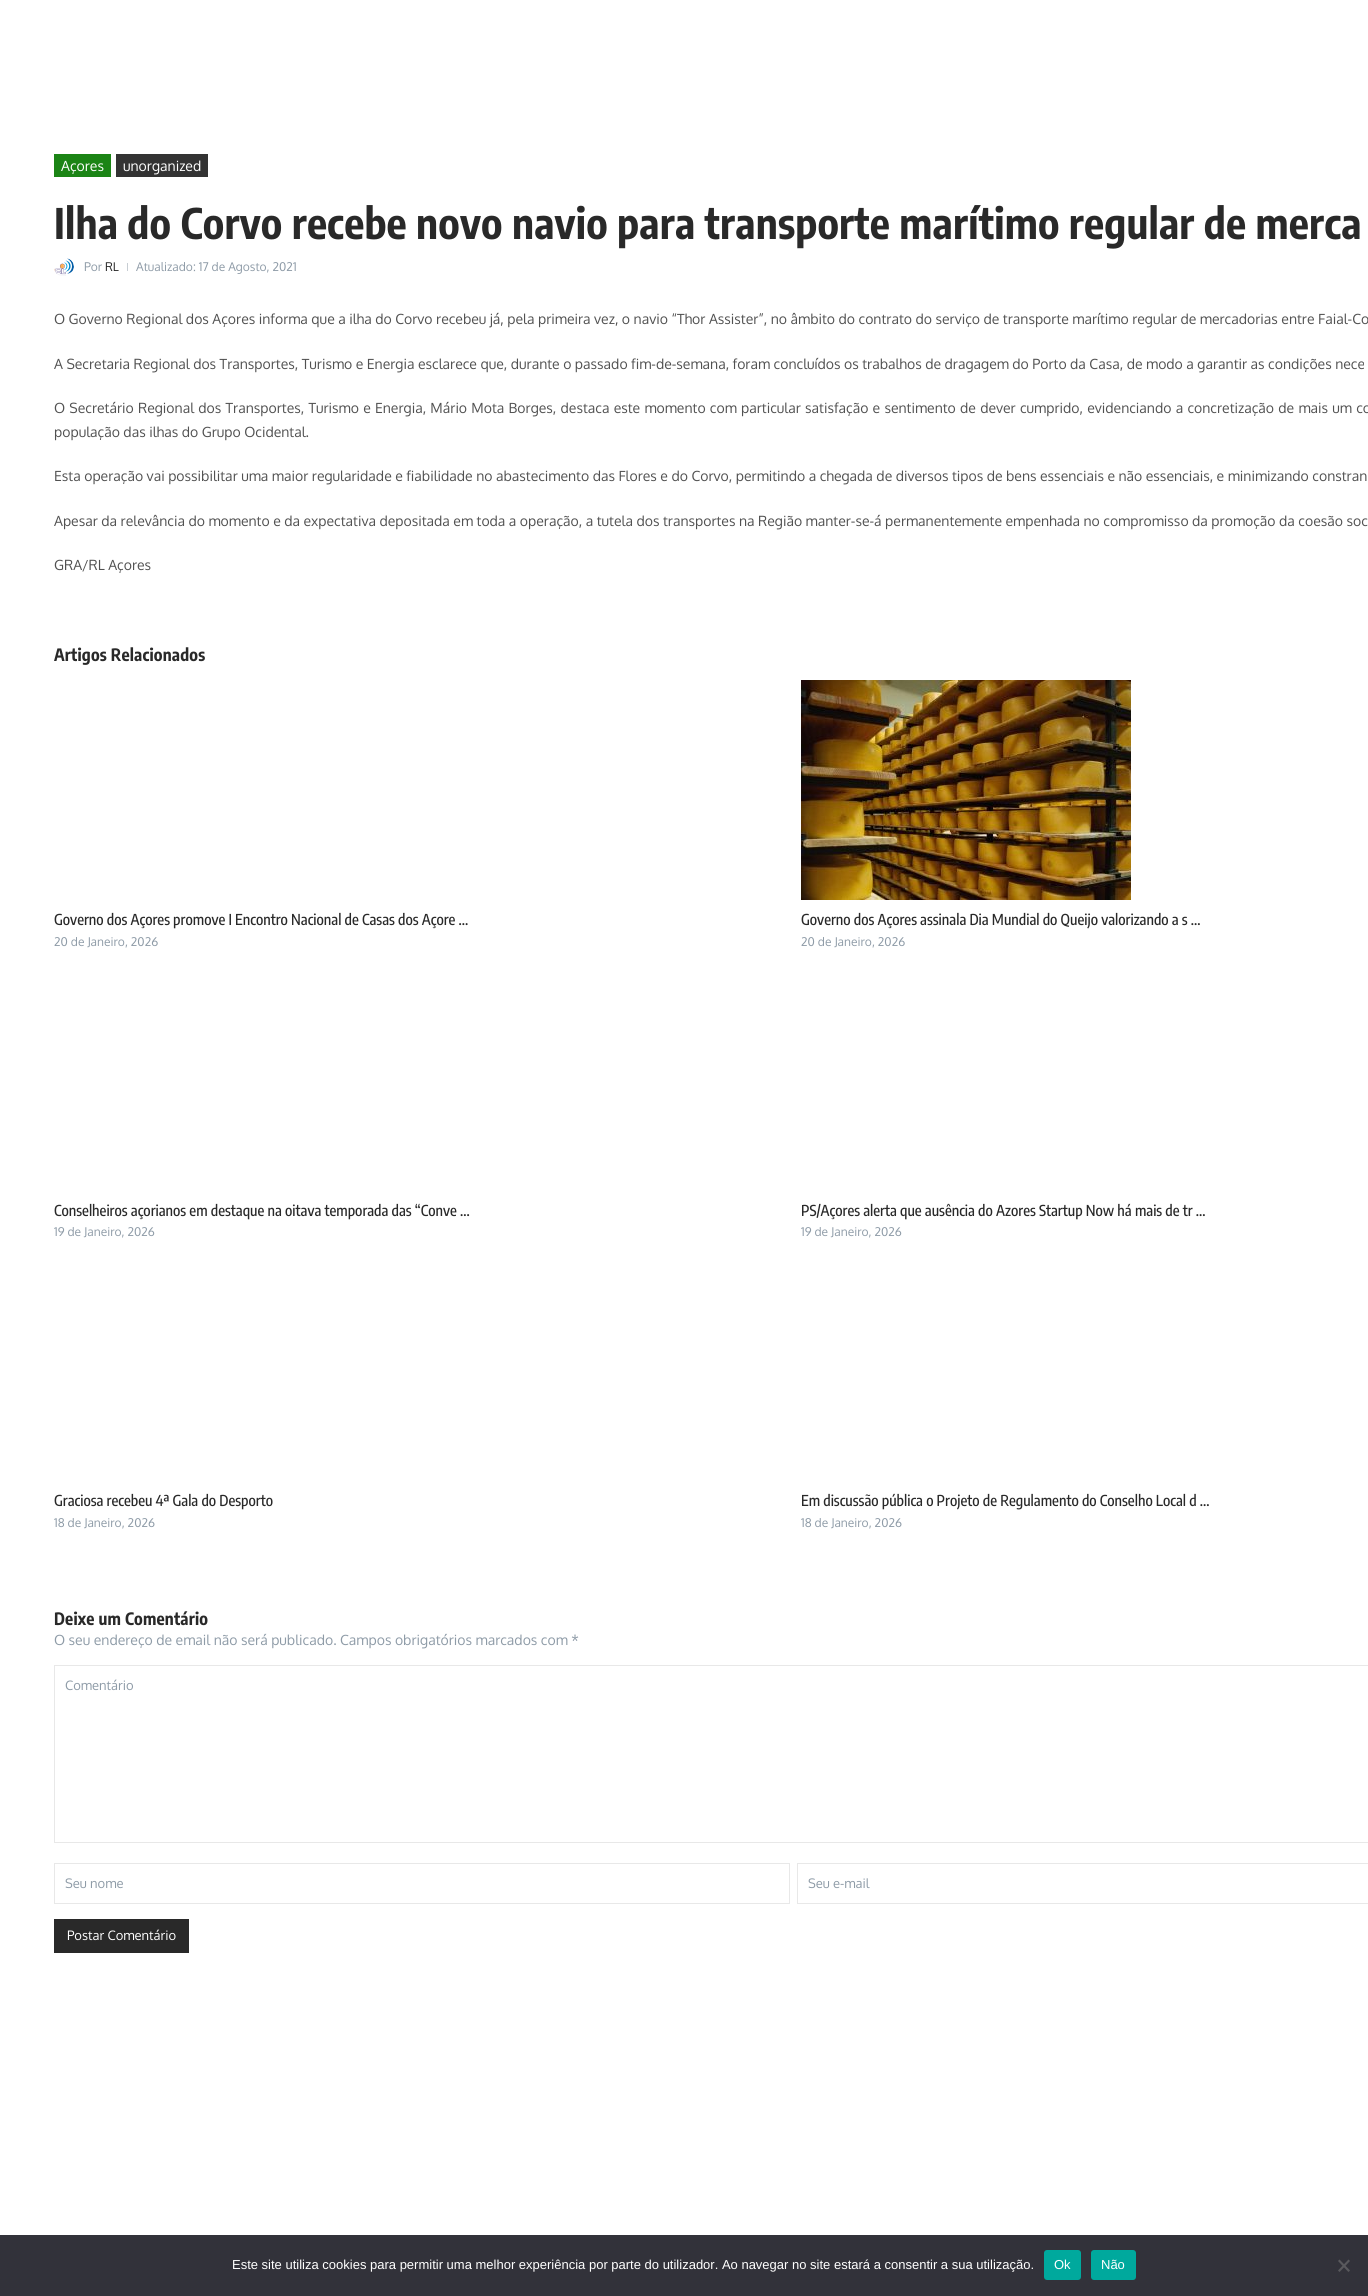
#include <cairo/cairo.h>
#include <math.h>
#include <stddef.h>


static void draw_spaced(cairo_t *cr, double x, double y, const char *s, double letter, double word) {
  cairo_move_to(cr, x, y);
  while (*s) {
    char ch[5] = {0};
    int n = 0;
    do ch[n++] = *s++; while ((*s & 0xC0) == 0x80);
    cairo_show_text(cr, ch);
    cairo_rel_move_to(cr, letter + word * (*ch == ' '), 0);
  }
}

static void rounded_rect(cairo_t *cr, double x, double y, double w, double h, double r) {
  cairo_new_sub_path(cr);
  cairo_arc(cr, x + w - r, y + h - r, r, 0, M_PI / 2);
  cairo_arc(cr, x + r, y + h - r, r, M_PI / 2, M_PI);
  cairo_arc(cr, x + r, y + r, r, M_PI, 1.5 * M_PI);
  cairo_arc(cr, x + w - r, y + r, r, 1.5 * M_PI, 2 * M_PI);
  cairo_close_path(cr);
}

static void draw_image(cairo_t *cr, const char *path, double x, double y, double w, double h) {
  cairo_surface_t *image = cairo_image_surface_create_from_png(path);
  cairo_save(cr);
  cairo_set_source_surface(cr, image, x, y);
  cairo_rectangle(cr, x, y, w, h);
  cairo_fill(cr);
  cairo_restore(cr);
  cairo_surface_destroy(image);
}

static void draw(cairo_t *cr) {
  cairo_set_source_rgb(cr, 1, 1, 1);
  cairo_paint(cr);
  cairo_set_source_rgb(cr, 27 / 255.0, 132 / 255.0, 21 / 255.0);
  cairo_rectangle(cr, 54, 154, 57, 23);
  cairo_fill(cr);
  cairo_set_source_rgb(cr, 51 / 255.0, 51 / 255.0, 51 / 255.0);
  cairo_rectangle(cr, 116, 154, 92, 23);
  cairo_fill(cr);
  draw_image(cr, "images/1.png", 54, 258, 20, 18);
  cairo_set_source_rgb(cr, 199 / 255.0, 205 / 255.0, 211 / 255.0);
  cairo_rectangle(cr, 127, 263, 1, 8);
  cairo_fill(cr);
  draw_image(cr, "images/2.png", 801, 680, 330, 220);
  cairo_rectangle(cr, 54.5, 1665.5, 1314, 177);
  cairo_set_source_rgb(cr, 232 / 255.0, 232 / 255.0, 232 / 255.0);
  cairo_set_line_width(cr, 1);
  cairo_stroke(cr);
  cairo_rectangle(cr, 54.5, 1863.5, 735, 40);
  cairo_stroke(cr);
  cairo_rectangle(cr, 797.5, 1863.5, 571, 40);
  cairo_stroke(cr);
  cairo_set_source_rgb(cr, 41 / 255.0, 41 / 255.0, 41 / 255.0);
  cairo_rectangle(cr, 54, 1919, 135, 34);
  cairo_fill(cr);
  cairo_set_source_rgb(cr, 50 / 255.0, 50 / 255.0, 58 / 255.0);
  cairo_rectangle(cr, 0, 2235, 1368, 61);
  cairo_fill(cr);
  cairo_set_source_rgb(cr, 0, 169 / 255.0, 157 / 255.0);
  rounded_rect(cr, 1044, 2250, 37, 30, 3);
  cairo_fill(cr);
  rounded_rect(cr, 1091, 2250, 45, 30, 3);
  cairo_fill(cr);
  cairo_set_source_rgb(cr, 89 / 255.0, 89 / 255.0, 93 / 255.0);
  cairo_new_path(cr);
  cairo_move_to(cr, 1348.5, 2259.5);
  cairo_line_to(cr, 1350, 2261);
  cairo_line_to(cr, 1339.5, 2272);
  cairo_line_to(cr, 1338, 2270.5);
  cairo_close_path(cr);
  cairo_fill(cr);
  cairo_new_path(cr);
  cairo_move_to(cr, 1338, 2261);
  cairo_line_to(cr, 1339.5, 2259.5);
  cairo_line_to(cr, 1350, 2270.5);
  cairo_line_to(cr, 1348.5, 2272);
  cairo_close_path(cr);
  cairo_fill(cr);
  cairo_select_font_face(cr, "Oxygen", CAIRO_FONT_SLANT_NORMAL, CAIRO_FONT_WEIGHT_NORMAL);
  cairo_set_font_size(cr, 14);
  cairo_set_source_rgb(cr, 1, 1, 1);
  cairo_move_to(cr, 61, 171);
  cairo_show_text(cr, "Açores");
  cairo_move_to(cr, 123, 171);
  cairo_show_text(cr, "unorganized");
  cairo_select_font_face(cr, "Encode Sans Condensed", CAIRO_FONT_SLANT_NORMAL, CAIRO_FONT_WEIGHT_BOLD);
  cairo_set_font_size(cr, 42);
  cairo_set_source_rgb(cr, 41 / 255.0, 41 / 255.0, 41 / 255.0);
  draw_spaced(cr, 54, 239, "Ilha do Corvo recebe novo navio para transporte marítimo regular de merca", 0.2, 0);
  cairo_select_font_face(cr, "Oxygen", CAIRO_FONT_SLANT_NORMAL, CAIRO_FONT_WEIGHT_NORMAL);
  cairo_set_font_size(cr, 12);
  cairo_set_source_rgb(cr, 142 / 255.0, 155 / 255.0, 167 / 255.0);
  cairo_move_to(cr, 84, 271);
  cairo_show_text(cr, "Por");
  cairo_set_source_rgb(cr, 41 / 255.0, 41 / 255.0, 41 / 255.0);
  cairo_move_to(cr, 105, 271);
  cairo_show_text(cr, "RL");
  cairo_set_source_rgb(cr, 142 / 255.0, 155 / 255.0, 167 / 255.0);
  cairo_move_to(cr, 136, 271);
  cairo_show_text(cr, "Atualizado: 17 de Agosto, 2021");
  cairo_set_font_size(cr, 14);
  cairo_set_source_rgb(cr, 81 / 255.0, 81 / 255.0, 81 / 255.0);
  cairo_move_to(cr, 54, 324);
  cairo_show_text(cr, "O Governo Regional dos Açores informa que a ilha do Corvo recebeu já, pela primeira vez, o navio “Thor Assister”, no âmbito do contrato do serviço de transporte marítimo regular de mercadorias entre Faial-Co");
  cairo_move_to(cr, 54, 369);
  cairo_show_text(cr, "A Secretaria Regional dos Transportes, Turismo e Energia esclarece que, durante o passado fim-de-semana, foram concluídos os trabalhos de dragagem do Porto da Casa, de modo a garantir as condições nece");
  draw_spaced(cr, 54, 413, "O Secretário Regional dos Transportes, Turismo e Energia, Mário Mota Borges, destaca este momento com particular satisfação e sentimento de dever cumprido, evidenciando a concretização de mais um co", 0, 0.75);
  cairo_move_to(cr, 54, 437);
  cairo_show_text(cr, "população das ilhas do Grupo Ocidental.");
  cairo_move_to(cr, 54, 481);
  cairo_show_text(cr, "Esta operação vai possibilitar uma maior regularidade e fiabilidade no abastecimento das Flores e do Corvo, permitindo a chegada de diversos tipos de bens essenciais e não essenciais, e minimizando constran");
  cairo_move_to(cr, 54, 526);
  cairo_show_text(cr, "Apesar da relevância do momento e da expectativa depositada em toda a operação, a tutela dos transportes na Região manter-se-á permanentemente empenhada no compromisso da promoção da coesão soc");
  cairo_move_to(cr, 54, 570);
  cairo_show_text(cr, "GRA/RL Açores");
  cairo_select_font_face(cr, "Encode Sans Condensed", CAIRO_FONT_SLANT_NORMAL, CAIRO_FONT_WEIGHT_BOLD);
  cairo_set_font_size(cr, 17);
  cairo_set_source_rgb(cr, 41 / 255.0, 41 / 255.0, 41 / 255.0);
  draw_spaced(cr, 54, 661, "Artigos Relacionados", 0.2, 0);
  cairo_select_font_face(cr, "Encode Sans Condensed Medium", CAIRO_FONT_SLANT_NORMAL, CAIRO_FONT_WEIGHT_NORMAL);
  cairo_set_font_size(cr, 15);
  cairo_move_to(cr, 54, 925);
  cairo_show_text(cr, "Governo dos Açores promove I Encontro Nacional de Casas dos Açore ...");
  cairo_select_font_face(cr, "Oxygen", CAIRO_FONT_SLANT_NORMAL, CAIRO_FONT_WEIGHT_NORMAL);
  cairo_set_font_size(cr, 12);
  cairo_set_source_rgb(cr, 142 / 255.0, 155 / 255.0, 167 / 255.0);
  cairo_move_to(cr, 54, 946);
  cairo_show_text(cr, "20 de Janeiro, 2026");
  cairo_select_font_face(cr, "Encode Sans Condensed Medium", CAIRO_FONT_SLANT_NORMAL, CAIRO_FONT_WEIGHT_NORMAL);
  cairo_set_font_size(cr, 15);
  cairo_set_source_rgb(cr, 41 / 255.0, 41 / 255.0, 41 / 255.0);
  cairo_move_to(cr, 801, 925);
  cairo_show_text(cr, "Governo dos Açores assinala Dia Mundial do Queijo valorizando a s ...");
  cairo_select_font_face(cr, "Oxygen", CAIRO_FONT_SLANT_NORMAL, CAIRO_FONT_WEIGHT_NORMAL);
  cairo_set_font_size(cr, 12);
  cairo_set_source_rgb(cr, 142 / 255.0, 155 / 255.0, 167 / 255.0);
  cairo_move_to(cr, 801, 946);
  cairo_show_text(cr, "20 de Janeiro, 2026");
  cairo_select_font_face(cr, "Encode Sans Condensed Medium", CAIRO_FONT_SLANT_NORMAL, CAIRO_FONT_WEIGHT_NORMAL);
  cairo_set_font_size(cr, 15);
  cairo_set_source_rgb(cr, 41 / 255.0, 41 / 255.0, 41 / 255.0);
  cairo_move_to(cr, 54, 1216);
  cairo_show_text(cr, "Conselheiros açorianos em destaque na oitava temporada das “Conve ...");
  cairo_select_font_face(cr, "Oxygen", CAIRO_FONT_SLANT_NORMAL, CAIRO_FONT_WEIGHT_NORMAL);
  cairo_set_font_size(cr, 12);
  cairo_set_source_rgb(cr, 142 / 255.0, 155 / 255.0, 167 / 255.0);
  cairo_move_to(cr, 54, 1236);
  cairo_show_text(cr, "19 de Janeiro, 2026");
  cairo_select_font_face(cr, "Encode Sans Condensed Medium", CAIRO_FONT_SLANT_NORMAL, CAIRO_FONT_WEIGHT_NORMAL);
  cairo_set_font_size(cr, 15);
  cairo_set_source_rgb(cr, 41 / 255.0, 41 / 255.0, 41 / 255.0);
  cairo_move_to(cr, 801, 1216);
  cairo_show_text(cr, "PS/Açores alerta que ausência do Azores Startup Now há mais de tr ...");
  cairo_select_font_face(cr, "Oxygen", CAIRO_FONT_SLANT_NORMAL, CAIRO_FONT_WEIGHT_NORMAL);
  cairo_set_font_size(cr, 12);
  cairo_set_source_rgb(cr, 142 / 255.0, 155 / 255.0, 167 / 255.0);
  cairo_move_to(cr, 801, 1236);
  cairo_show_text(cr, "19 de Janeiro, 2026");
  cairo_select_font_face(cr, "Encode Sans Condensed Medium", CAIRO_FONT_SLANT_NORMAL, CAIRO_FONT_WEIGHT_NORMAL);
  cairo_set_font_size(cr, 15);
  cairo_set_source_rgb(cr, 41 / 255.0, 41 / 255.0, 41 / 255.0);
  cairo_move_to(cr, 54, 1506);
  cairo_show_text(cr, "Graciosa recebeu 4ª Gala do Desporto");
  cairo_select_font_face(cr, "Oxygen", CAIRO_FONT_SLANT_NORMAL, CAIRO_FONT_WEIGHT_NORMAL);
  cairo_set_font_size(cr, 12);
  cairo_set_source_rgb(cr, 142 / 255.0, 155 / 255.0, 167 / 255.0);
  cairo_move_to(cr, 54, 1527);
  cairo_show_text(cr, "18 de Janeiro, 2026");
  cairo_select_font_face(cr, "Encode Sans Condensed Medium", CAIRO_FONT_SLANT_NORMAL, CAIRO_FONT_WEIGHT_NORMAL);
  cairo_set_font_size(cr, 15);
  cairo_set_source_rgb(cr, 41 / 255.0, 41 / 255.0, 41 / 255.0);
  cairo_move_to(cr, 801, 1506);
  cairo_show_text(cr, "Em discussão pública o Projeto de Regulamento do Conselho Local d ...");
  cairo_select_font_face(cr, "Oxygen", CAIRO_FONT_SLANT_NORMAL, CAIRO_FONT_WEIGHT_NORMAL);
  cairo_set_font_size(cr, 12);
  cairo_set_source_rgb(cr, 142 / 255.0, 155 / 255.0, 167 / 255.0);
  cairo_move_to(cr, 801, 1527);
  cairo_show_text(cr, "18 de Janeiro, 2026");
  cairo_select_font_face(cr, "Encode Sans Condensed", CAIRO_FONT_SLANT_NORMAL, CAIRO_FONT_WEIGHT_BOLD);
  cairo_set_font_size(cr, 17);
  cairo_set_source_rgb(cr, 41 / 255.0, 41 / 255.0, 41 / 255.0);
  draw_spaced(cr, 54, 1625, "Deixe um Comentário", 0.2, 0);
  cairo_select_font_face(cr, "Oxygen", CAIRO_FONT_SLANT_NORMAL, CAIRO_FONT_WEIGHT_NORMAL);
  cairo_set_font_size(cr, 14);
  cairo_set_source_rgb(cr, 142 / 255.0, 155 / 255.0, 167 / 255.0);
  cairo_move_to(cr, 54, 1645);
  cairo_show_text(cr, "O seu endereço de email não será publicado. Campos obrigatórios marcados com *");
  cairo_set_font_size(cr, 13);
  cairo_move_to(cr, 65, 1690);
  cairo_show_text(cr, "Comentário");
  cairo_move_to(cr, 65, 1888);
  cairo_show_text(cr, "Seu nome");
  cairo_move_to(cr, 808, 1888);
  cairo_show_text(cr, "Seu e-mail");
  cairo_set_source_rgb(cr, 1, 1, 1);
  cairo_move_to(cr, 67, 1940);
  cairo_show_text(cr, "Postar Comentário");
  cairo_select_font_face(cr, "Liberation Sans", CAIRO_FONT_SLANT_NORMAL, CAIRO_FONT_WEIGHT_NORMAL);
  cairo_move_to(cr, 232, 2269);
  cairo_show_text(cr, "Este site utiliza cookies para permitir uma melhor experiência por parte do utilizador. Ao navegar no site estará a consentir a sua utilização.");
  cairo_move_to(cr, 1054, 2269);
  cairo_show_text(cr, "Ok");
  cairo_move_to(cr, 1101, 2269);
  cairo_show_text(cr, "Não");
}

int main(void) {
  cairo_surface_t *surface = cairo_image_surface_create(CAIRO_FORMAT_RGB24, 1368, 2296);
  cairo_t *cr = cairo_create(surface);
  cairo_font_options_t *options = cairo_font_options_create();
  cairo_font_options_set_hint_metrics(options, CAIRO_HINT_METRICS_OFF);
  cairo_font_options_set_hint_style(options, CAIRO_HINT_STYLE_NONE);
  cairo_set_font_options(cr, options);
  cairo_set_miter_limit(cr, 4);
  draw(cr);
  cairo_surface_write_to_png(surface, "out.png");
  cairo_font_options_destroy(options);
  cairo_destroy(cr);
  cairo_surface_destroy(surface);
  return 0;
}
